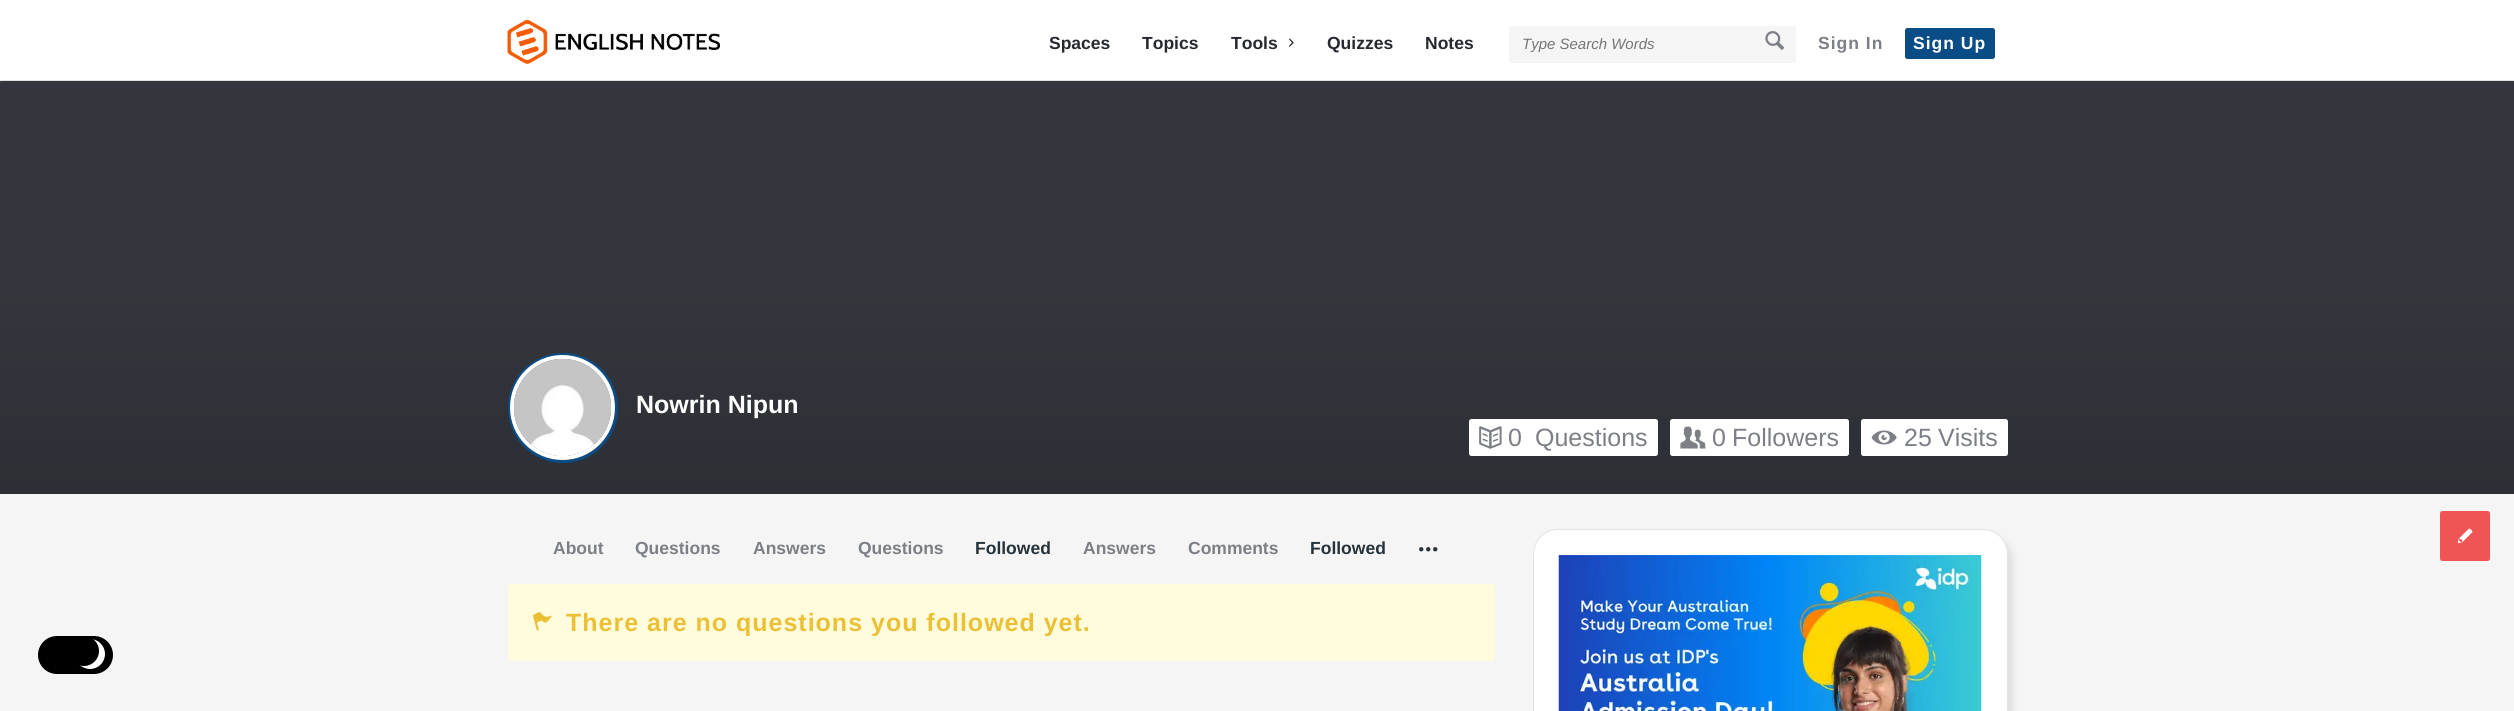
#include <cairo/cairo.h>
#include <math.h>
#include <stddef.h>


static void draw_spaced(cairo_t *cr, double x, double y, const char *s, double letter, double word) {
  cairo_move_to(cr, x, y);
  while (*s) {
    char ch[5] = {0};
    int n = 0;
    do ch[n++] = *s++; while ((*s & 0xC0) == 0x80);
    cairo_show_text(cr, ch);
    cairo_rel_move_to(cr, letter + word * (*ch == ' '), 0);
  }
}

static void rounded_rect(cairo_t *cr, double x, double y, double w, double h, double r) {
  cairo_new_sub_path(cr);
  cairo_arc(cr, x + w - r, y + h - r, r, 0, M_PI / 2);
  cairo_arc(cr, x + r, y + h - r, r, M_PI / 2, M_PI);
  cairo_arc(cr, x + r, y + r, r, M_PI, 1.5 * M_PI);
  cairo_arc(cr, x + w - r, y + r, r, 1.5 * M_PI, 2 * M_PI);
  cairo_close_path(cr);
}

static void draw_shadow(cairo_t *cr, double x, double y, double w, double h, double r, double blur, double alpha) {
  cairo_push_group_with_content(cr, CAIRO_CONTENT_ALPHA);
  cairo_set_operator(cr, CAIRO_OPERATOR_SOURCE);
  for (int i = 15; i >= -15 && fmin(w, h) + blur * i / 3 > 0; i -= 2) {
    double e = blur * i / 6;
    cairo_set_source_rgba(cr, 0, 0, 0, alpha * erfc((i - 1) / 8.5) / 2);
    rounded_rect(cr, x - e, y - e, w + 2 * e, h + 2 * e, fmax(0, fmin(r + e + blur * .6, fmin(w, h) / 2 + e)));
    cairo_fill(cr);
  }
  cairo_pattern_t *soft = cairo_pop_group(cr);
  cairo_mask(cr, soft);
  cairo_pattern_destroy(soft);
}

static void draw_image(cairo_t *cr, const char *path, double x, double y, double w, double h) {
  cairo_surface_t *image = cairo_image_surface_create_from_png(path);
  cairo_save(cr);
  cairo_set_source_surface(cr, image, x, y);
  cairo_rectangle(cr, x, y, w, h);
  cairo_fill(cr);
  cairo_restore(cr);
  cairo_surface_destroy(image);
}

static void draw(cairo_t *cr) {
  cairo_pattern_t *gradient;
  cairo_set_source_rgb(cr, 245 / 255.0, 245 / 255.0, 245 / 255.0);
  cairo_paint(cr);
  cairo_set_source_rgb(cr, 1, 1, 1);
  cairo_rectangle(cr, 0, 0, 2514, 80);
  cairo_fill(cr);
  cairo_set_source_rgb(cr, 225 / 255.0, 227 / 255.0, 227 / 255.0);
  cairo_rectangle(cr, 0, 80, 2514, 1);
  cairo_fill(cr);
  draw_image(cr, "images/1.png", 507, 20, 213, 44);
  draw_image(cr, "images/2.png", 1289, 38, 5, 9);
  cairo_set_source_rgb(cr, 245 / 255.0, 245 / 255.0, 245 / 255.0);
  rounded_rect(cr, 1509, 26, 287, 37, 2.5);
  cairo_fill(cr);
  draw_image(cr, "images/3.png", 1765, 31, 19, 19);
  cairo_set_source_rgb(cr, 10 / 255.0, 76 / 255.0, 134 / 255.0);
  rounded_rect(cr, 1905, 28, 90, 31, 2.5);
  cairo_fill(cr);
  gradient = cairo_pattern_create_linear(0, 494, 0, 81);
  cairo_pattern_add_color_stop_rgba(gradient, 0, 55 / 255.0, 57 / 255.0, 64 / 255.0, 1);
  cairo_pattern_add_color_stop_rgba(gradient, 0.5, 73 / 255.0, 75 / 255.0, 82 / 255.0, 1);
  cairo_set_source(cr, gradient);
  cairo_pattern_destroy(gradient);
  cairo_rectangle(cr, 0, 81, 2514, 413);
  cairo_fill(cr);
  cairo_set_source_rgba(cr, 39 / 255.0, 41 / 255.0, 48 / 255.0, 0.6);
  rounded_rect(cr, 0, 81, 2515, 413, 2.5);
  cairo_fill(cr);
  cairo_arc(cr, 563, 408, 53.5, 0, 2 * M_PI);
  cairo_set_source_rgb(cr, 10 / 255.0, 76 / 255.0, 134 / 255.0);
  cairo_set_line_width(cr, 3);
  cairo_stroke(cr);
  cairo_arc(cr, 562.5, 407.5, 50.5, 0, 2 * M_PI);
  cairo_set_source_rgb(cr, 1, 1, 1);
  cairo_set_line_width(cr, 4);
  cairo_stroke(cr);
  draw_image(cr, "images/4.png", 513, 359, 98, 97);
  rounded_rect(cr, 1469, 419, 189, 37, 2.5);
  cairo_fill(cr);
  draw_image(cr, "images/5.png", 1479, 426, 23, 23);
  rounded_rect(cr, 1670, 419, 179, 37, 2.5);
  cairo_fill(cr);
  draw_image(cr, "images/6.png", 1680, 426, 26, 23);
  rounded_rect(cr, 1861, 419, 147, 37, 2.5);
  cairo_fill(cr);
  draw_image(cr, "images/7.png", 1871, 430, 26, 15);
  draw_image(cr, "images/8.png", 1419, 547, 19, 5);
  cairo_set_source_rgb(cr, 1, 252 / 255.0, 221 / 255.0);
  rounded_rect(cr, 508, 584, 987, 77, 2.5);
  cairo_fill(cr);
  draw_image(cr, "images/9.png", 532, 612, 20, 19);
  cairo_set_source_rgb(cr, 179 / 255.0, 171 / 255.0, 171 / 255.0);
  draw_shadow(cr, 1538, 535, 475, 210, 25, 3, 0.31);
  cairo_set_source_rgb(cr, 1, 1, 1);
  rounded_rect(cr, 1533.5, 529.5, 474, 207, 24.5);
  cairo_fill_preserve(cr);
  cairo_set_source_rgb(cr, 225 / 255.0, 227 / 255.0, 227 / 255.0);
  cairo_set_line_width(cr, 1);
  cairo_stroke(cr);
  draw_image(cr, "images/10.png", 1558, 555, 424, 156);
  cairo_set_source_rgb(cr, 240 / 255.0, 85 / 255.0, 85 / 255.0);
  rounded_rect(cr, 2440, 511, 50, 50, 2.5);
  cairo_fill(cr);
  draw_image(cr, "images/11.png", 2457, 528, 16, 16);
  cairo_set_source_rgb(cr, 0, 0, 0);
  rounded_rect(cr, 38, 636, 75, 38, 19);
  cairo_fill(cr);
  cairo_set_source_rgb(cr, 1, 1, 1);
  cairo_arc(cr, 90, 654, 15, 0, 2 * M_PI);
  cairo_fill(cr);
  cairo_set_source_rgb(cr, 0, 0, 0);
  cairo_arc(cr, 84, 651, 15, 0, 2 * M_PI);
  cairo_fill(cr);
  cairo_select_font_face(cr, "Liberation Sans", CAIRO_FONT_SLANT_NORMAL, CAIRO_FONT_WEIGHT_BOLD);
  cairo_set_font_size(cr, 17.5);
  cairo_set_source_rgb(cr, 39 / 255.0, 41 / 255.0, 48 / 255.0);
  cairo_move_to(cr, 1049, 49);
  cairo_show_text(cr, "Spaces");
  cairo_move_to(cr, 1142, 49);
  cairo_show_text(cr, "Topics");
  cairo_move_to(cr, 1231, 49);
  cairo_show_text(cr, "Tools");
  cairo_move_to(cr, 1327, 49);
  cairo_show_text(cr, "Quizzes");
  cairo_move_to(cr, 1425, 49);
  cairo_show_text(cr, "Notes");
  cairo_select_font_face(cr, "Liberation Sans", CAIRO_FONT_SLANT_ITALIC, CAIRO_FONT_WEIGHT_NORMAL);
  cairo_set_font_size(cr, 15);
  cairo_set_source_rgb(cr, 117 / 255.0, 117 / 255.0, 117 / 255.0);
  cairo_move_to(cr, 1522, 49);
  cairo_show_text(cr, "Type Search Words");
  cairo_select_font_face(cr, "Liberation Sans", CAIRO_FONT_SLANT_NORMAL, CAIRO_FONT_WEIGHT_BOLD);
  cairo_set_font_size(cr, 17.5);
  cairo_set_source_rgb(cr, 124 / 255.0, 127 / 255.0, 133 / 255.0);
  draw_spaced(cr, 1818, 49, "Sign In", 1, 0);
  cairo_set_source_rgb(cr, 1, 1, 1);
  draw_spaced(cr, 1913, 49, "Sign Up", 1, 0);
  cairo_set_font_size(cr, 25);
  cairo_move_to(cr, 636, 413);
  cairo_show_text(cr, "Nowrin Nipun");
  cairo_select_font_face(cr, "Liberation Sans", CAIRO_FONT_SLANT_NORMAL, CAIRO_FONT_WEIGHT_NORMAL);
  cairo_set_source_rgb(cr, 124 / 255.0, 127 / 255.0, 133 / 255.0);
  cairo_move_to(cr, 1508, 446);
  cairo_show_text(cr, "0");
  cairo_move_to(cr, 1535, 446);
  cairo_show_text(cr, "Questions");
  cairo_move_to(cr, 1712, 446);
  cairo_show_text(cr, "0");
  cairo_move_to(cr, 1732, 446);
  cairo_show_text(cr, "Followers");
  cairo_move_to(cr, 1904, 446);
  cairo_show_text(cr, "25");
  cairo_move_to(cr, 1938, 446);
  cairo_show_text(cr, "Visits");
  cairo_select_font_face(cr, "Liberation Sans", CAIRO_FONT_SLANT_NORMAL, CAIRO_FONT_WEIGHT_BOLD);
  cairo_set_font_size(cr, 17.5);
  cairo_move_to(cr, 553, 554);
  cairo_show_text(cr, "About");
  cairo_move_to(cr, 635, 554);
  cairo_show_text(cr, "Questions");
  cairo_move_to(cr, 753, 554);
  cairo_show_text(cr, "Answers");
  cairo_move_to(cr, 858, 554);
  cairo_show_text(cr, "Questions");
  cairo_set_source_rgb(cr, 38 / 255.0, 51 / 255.0, 59 / 255.0);
  cairo_move_to(cr, 975, 554);
  cairo_show_text(cr, "Followed");
  cairo_set_source_rgb(cr, 124 / 255.0, 127 / 255.0, 133 / 255.0);
  cairo_move_to(cr, 1083, 554);
  cairo_show_text(cr, "Answers");
  cairo_move_to(cr, 1188, 554);
  cairo_show_text(cr, "Comments");
  cairo_set_source_rgb(cr, 38 / 255.0, 51 / 255.0, 59 / 255.0);
  cairo_move_to(cr, 1310, 554);
  cairo_show_text(cr, "Followed");
  cairo_save(cr);
  cairo_rectangle(cr, 566, 609, 904, 27);
  cairo_clip(cr);
  cairo_set_font_size(cr, 25);
  cairo_set_source_rgb(cr, 235 / 255.0, 192 / 255.0, 53 / 255.0);
  draw_spaced(cr, 566, 631, "There are no questions you followed yet.", 1, 0);
  cairo_restore(cr);
}

int main(void) {
  cairo_surface_t *surface = cairo_image_surface_create(CAIRO_FORMAT_RGB24, 2514, 711);
  cairo_t *cr = cairo_create(surface);
  cairo_font_options_t *options = cairo_font_options_create();
  cairo_font_options_set_hint_metrics(options, CAIRO_HINT_METRICS_OFF);
  cairo_font_options_set_hint_style(options, CAIRO_HINT_STYLE_NONE);
  cairo_set_font_options(cr, options);
  cairo_set_miter_limit(cr, 4);
  draw(cr);
  cairo_surface_write_to_png(surface, "out.png");
  cairo_font_options_destroy(options);
  cairo_destroy(cr);
  cairo_surface_destroy(surface);
  return 0;
}
